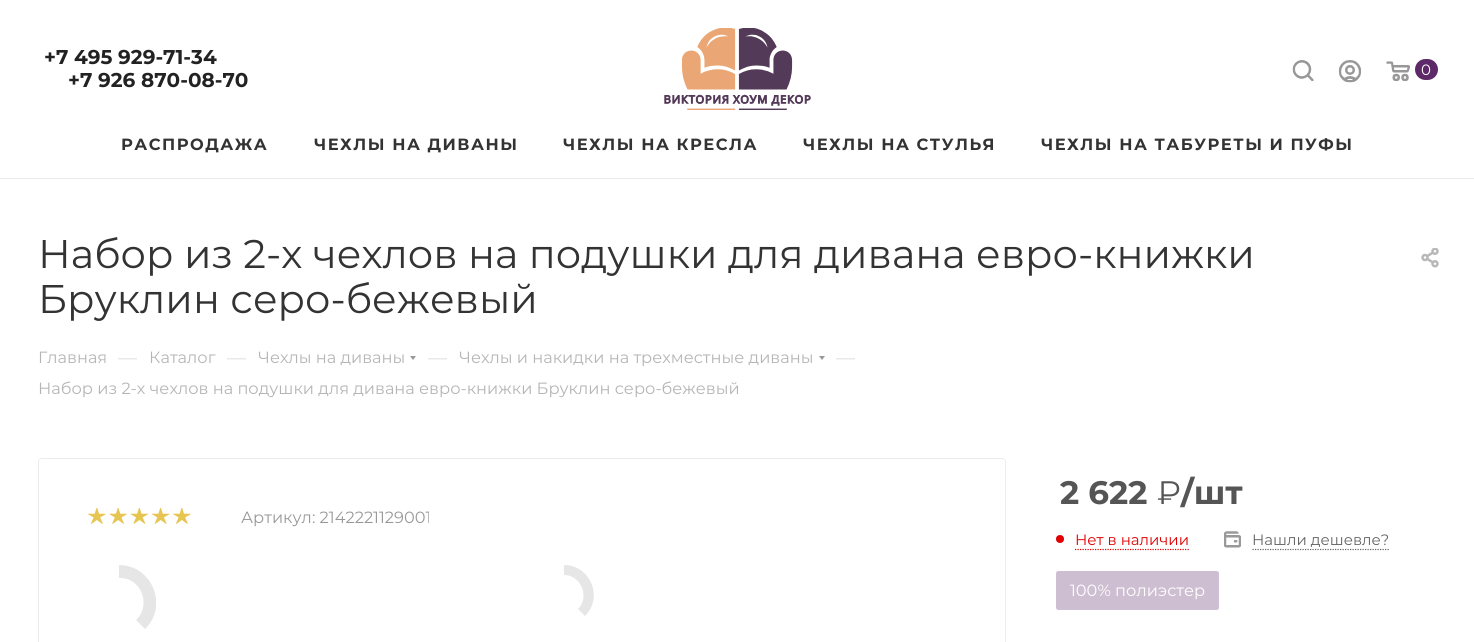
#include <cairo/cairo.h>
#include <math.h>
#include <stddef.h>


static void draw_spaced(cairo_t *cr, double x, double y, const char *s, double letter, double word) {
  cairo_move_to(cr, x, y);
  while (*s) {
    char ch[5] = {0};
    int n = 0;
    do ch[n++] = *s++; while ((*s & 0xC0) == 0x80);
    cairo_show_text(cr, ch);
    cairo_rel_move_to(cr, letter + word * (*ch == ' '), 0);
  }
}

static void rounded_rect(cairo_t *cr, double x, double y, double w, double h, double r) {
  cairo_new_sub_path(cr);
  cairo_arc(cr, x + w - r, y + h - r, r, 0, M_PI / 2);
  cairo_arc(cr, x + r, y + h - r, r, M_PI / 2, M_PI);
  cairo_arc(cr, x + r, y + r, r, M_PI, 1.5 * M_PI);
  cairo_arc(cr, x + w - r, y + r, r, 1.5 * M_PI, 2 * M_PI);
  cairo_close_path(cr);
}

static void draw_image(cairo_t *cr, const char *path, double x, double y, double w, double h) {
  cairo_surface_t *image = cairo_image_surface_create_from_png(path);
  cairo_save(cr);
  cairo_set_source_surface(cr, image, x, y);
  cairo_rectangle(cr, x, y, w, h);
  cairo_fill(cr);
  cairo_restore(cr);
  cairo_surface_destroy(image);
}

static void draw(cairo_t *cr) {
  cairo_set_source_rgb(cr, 1, 1, 1);
  cairo_paint(cr);
  draw_image(cr, "images/1.png", 664, 28, 147, 82);
  draw_image(cr, "images/2.png", 1292, 60, 22, 22);
  draw_image(cr, "images/3.png", 1338, 60, 24, 23);
  draw_image(cr, "images/4.png", 1386, 61, 24, 21);
  cairo_set_source_rgb(cr, 94 / 255.0, 41 / 255.0, 104 / 255.0);
  rounded_rect(cr, 1415, 59, 23, 21, 10.5);
  cairo_fill(cr);
  cairo_set_source_rgb(cr, 236 / 255.0, 236 / 255.0, 236 / 255.0);
  cairo_rectangle(cr, 0, 178, 1474, 1);
  cairo_fill(cr);
  draw_image(cr, "images/5.png", 1421, 248, 18, 20);
  cairo_set_source_rgb(cr, 153 / 255.0, 153 / 255.0, 153 / 255.0);
  cairo_set_fill_rule(cr, CAIRO_FILL_RULE_EVEN_ODD);
  cairo_new_path(cr);
  cairo_move_to(cr, 410, 356);
  cairo_line_to(cr, 416, 356);
  cairo_line_to(cr, 413, 360);
  cairo_close_path(cr);
  cairo_fill(cr);
  cairo_new_path(cr);
  cairo_move_to(cr, 819, 356);
  cairo_line_to(cr, 825, 356);
  cairo_line_to(cr, 822, 360);
  cairo_close_path(cr);
  cairo_fill(cr);
  rounded_rect(cr, 38.5, 458.5, 967, 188, 3.5);
  cairo_set_source_rgb(cr, 236 / 255.0, 236 / 255.0, 236 / 255.0);
  cairo_set_line_width(cr, 1);
  cairo_stroke(cr);
  draw_image(cr, "images/6.png", 88, 508, 18, 16);
  draw_image(cr, "images/7.png", 109, 508, 18, 16);
  draw_image(cr, "images/8.png", 130, 508, 18, 16);
  draw_image(cr, "images/9.png", 152, 508, 18, 16);
  draw_image(cr, "images/6.png", 173, 508, 18, 16);
  cairo_save(cr);
  cairo_set_fill_rule(cr, CAIRO_FILL_RULE_WINDING);
  cairo_rectangle(cr, 81, 565, 75, 75);
  cairo_clip(cr);
  cairo_set_source_rgb(cr, 230 / 255.0, 230 / 255.0, 230 / 255.0);
  cairo_new_path(cr);
  cairo_move_to(cr, 119, 565);
  cairo_curve_to(cr, 152, 565, 169, 606, 145, 629);
  cairo_line_to(cr, 136, 620);
  cairo_curve_to(cr, 152, 605, 141, 577, 119, 578);
  cairo_close_path(cr);
  cairo_fill(cr);
  cairo_restore(cr);
  cairo_set_source_rgb(cr, 230 / 255.0, 230 / 255.0, 230 / 255.0);
  cairo_set_fill_rule(cr, CAIRO_FILL_RULE_WINDING);
  cairo_new_path(cr);
  cairo_move_to(cr, 564, 565);
  cairo_curve_to(cr, 590, 565, 604, 597, 585, 616);
  cairo_line_to(cr, 578, 609);
  cairo_curve_to(cr, 590, 597, 581, 575, 564, 575);
  cairo_close_path(cr);
  cairo_fill(cr);
  cairo_set_source_rgb(cr, 225 / 255.0, 0, 0);
  cairo_arc(cr, 1060, 539, 4, 0, 2 * M_PI);
  cairo_fill(cr);
  cairo_new_path(cr);
  cairo_move_to(cr, 1075, 549.5);
  cairo_line_to(cr, 1189, 549.5);
  cairo_set_line_width(cr, 1.2);
  cairo_set_dash(cr, (double[]){1.25, 1.25}, 2, 0);
  cairo_stroke(cr);
  draw_image(cr, "images/10.png", 1224, 531, 17, 17);
  cairo_new_path(cr);
  cairo_move_to(cr, 1252.5, 549.5);
  cairo_line_to(cr, 1389, 549.5);
  cairo_set_source_rgb(cr, 102 / 255.0, 102 / 255.0, 102 / 255.0);
  cairo_stroke(cr);
  cairo_set_source_rgb(cr, 206 / 255.0, 190 / 255.0, 209 / 255.0);
  rounded_rect(cr, 1056.5, 571.5, 162, 38, 2);
  cairo_fill_preserve(cr);
  cairo_set_source_rgb(cr, 207 / 255.0, 191 / 255.0, 210 / 255.0);
  cairo_set_line_width(cr, 1);
  cairo_set_dash(cr, NULL, 0, 0);
  cairo_stroke(cr);
  cairo_select_font_face(cr, "Montserrat", CAIRO_FONT_SLANT_NORMAL, CAIRO_FONT_WEIGHT_BOLD);
  cairo_set_font_size(cr, 20);
  cairo_set_source_rgb(cr, 34 / 255.0, 34 / 255.0, 34 / 255.0);
  cairo_move_to(cr, 44, 64);
  cairo_show_text(cr, "+7 495 929-71-34");
  cairo_move_to(cr, 68, 87);
  cairo_show_text(cr, "+7 926 870-08-70");
  cairo_select_font_face(cr, "Montserrat", CAIRO_FONT_SLANT_NORMAL, CAIRO_FONT_WEIGHT_NORMAL);
  cairo_set_font_size(cr, 15);
  cairo_set_source_rgb(cr, 1, 1, 1);
  cairo_move_to(cr, 1421, 75);
  cairo_show_text(cr, "0");
  cairo_select_font_face(cr, "Montserrat", CAIRO_FONT_SLANT_NORMAL, CAIRO_FONT_WEIGHT_BOLD);
  cairo_set_font_size(cr, 16.25);
  cairo_set_source_rgb(cr, 51 / 255.0, 51 / 255.0, 51 / 255.0);
  draw_spaced(cr, 121, 150, "РАСПРОДАЖА", 1.5, 0);
  draw_spaced(cr, 314, 150, "ЧЕХЛЫ НА ДИВАНЫ", 1.5, 0);
  draw_spaced(cr, 563, 150, "ЧЕХЛЫ НА КРЕСЛА", 1.5, 0);
  draw_spaced(cr, 803, 150, "ЧЕХЛЫ НА СТУЛЬЯ", 1.5, 0);
  draw_spaced(cr, 1041, 150, "ЧЕХЛЫ НА ТАБУРЕТЫ И ПУФЫ", 1.5, 0);
  cairo_select_font_face(cr, "Montserrat", CAIRO_FONT_SLANT_NORMAL, CAIRO_FONT_WEIGHT_NORMAL);
  cairo_set_font_size(cr, 40);
  cairo_move_to(cr, 38, 268);
  cairo_show_text(cr, "Набор из 2-х чехлов на подушки для дивана евро-книжки");
  cairo_move_to(cr, 38, 313);
  cairo_show_text(cr, "Бруклин серо-бежевый");
  cairo_set_font_size(cr, 16.25);
  cairo_set_source_rgb(cr, 182 / 255.0, 181 / 255.0, 181 / 255.0);
  cairo_move_to(cr, 38, 363);
  cairo_show_text(cr, "Главная");
  cairo_set_font_size(cr, 19);
  cairo_set_source_rgb(cr, 221 / 255.0, 221 / 255.0, 221 / 255.0);
  cairo_move_to(cr, 118, 364);
  cairo_show_text(cr, "—");
  cairo_set_font_size(cr, 16.25);
  cairo_set_source_rgb(cr, 182 / 255.0, 181 / 255.0, 181 / 255.0);
  cairo_move_to(cr, 149, 363);
  cairo_show_text(cr, "Каталог");
  cairo_set_font_size(cr, 19);
  cairo_set_source_rgb(cr, 221 / 255.0, 221 / 255.0, 221 / 255.0);
  cairo_move_to(cr, 227, 364);
  cairo_show_text(cr, "—");
  cairo_set_font_size(cr, 16.25);
  cairo_set_source_rgb(cr, 182 / 255.0, 181 / 255.0, 181 / 255.0);
  cairo_move_to(cr, 258, 363);
  cairo_show_text(cr, "Чехлы на диваны");
  cairo_set_font_size(cr, 19);
  cairo_set_source_rgb(cr, 221 / 255.0, 221 / 255.0, 221 / 255.0);
  cairo_move_to(cr, 428, 364);
  cairo_show_text(cr, "—");
  cairo_set_font_size(cr, 16.25);
  cairo_set_source_rgb(cr, 182 / 255.0, 181 / 255.0, 181 / 255.0);
  cairo_move_to(cr, 459, 363);
  cairo_show_text(cr, "Чехлы и накидки на трехместные диваны");
  cairo_set_font_size(cr, 19);
  cairo_set_source_rgb(cr, 221 / 255.0, 221 / 255.0, 221 / 255.0);
  cairo_move_to(cr, 836, 364);
  cairo_show_text(cr, "—");
  cairo_set_font_size(cr, 16.25);
  cairo_set_source_rgb(cr, 182 / 255.0, 181 / 255.0, 181 / 255.0);
  cairo_move_to(cr, 38, 394);
  cairo_show_text(cr, "Набор из 2-х чехлов на подушки для дивана евро-книжки Бруклин серо-бежевый");
  cairo_set_source_rgb(cr, 153 / 255.0, 153 / 255.0, 153 / 255.0);
  cairo_move_to(cr, 241, 523);
  cairo_show_text(cr, "Артикул: 2142221129001");
  cairo_select_font_face(cr, "Montserrat", CAIRO_FONT_SLANT_NORMAL, CAIRO_FONT_WEIGHT_BOLD);
  cairo_set_font_size(cr, 32.5);
  cairo_set_source_rgb(cr, 85 / 255.0, 85 / 255.0, 85 / 255.0);
  cairo_move_to(cr, 1060, 504);
  cairo_show_text(cr, "2 622");
  cairo_select_font_face(cr, "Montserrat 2", CAIRO_FONT_SLANT_NORMAL, CAIRO_FONT_WEIGHT_NORMAL);
  cairo_move_to(cr, 1157, 504);
  cairo_show_text(cr, "₽");
  cairo_select_font_face(cr, "Montserrat", CAIRO_FONT_SLANT_NORMAL, CAIRO_FONT_WEIGHT_BOLD);
  cairo_move_to(cr, 1181, 504);
  cairo_show_text(cr, "/шт");
  cairo_select_font_face(cr, "Montserrat", CAIRO_FONT_SLANT_NORMAL, CAIRO_FONT_WEIGHT_NORMAL);
  cairo_set_font_size(cr, 15);
  cairo_set_source_rgb(cr, 225 / 255.0, 0, 0);
  cairo_move_to(cr, 1075, 545);
  cairo_show_text(cr, "Нет в наличии");
  cairo_set_source_rgb(cr, 102 / 255.0, 102 / 255.0, 102 / 255.0);
  cairo_move_to(cr, 1252, 545);
  cairo_show_text(cr, "Нашли дешевле?");
  cairo_set_font_size(cr, 16.25);
  cairo_set_source_rgb(cr, 1, 1, 1);
  cairo_move_to(cr, 1070, 596);
  cairo_show_text(cr, "100% полиэстер");
}

int main(void) {
  cairo_surface_t *surface = cairo_image_surface_create(CAIRO_FORMAT_RGB24, 1474, 642);
  cairo_t *cr = cairo_create(surface);
  cairo_font_options_t *options = cairo_font_options_create();
  cairo_font_options_set_hint_metrics(options, CAIRO_HINT_METRICS_OFF);
  cairo_font_options_set_hint_style(options, CAIRO_HINT_STYLE_NONE);
  cairo_set_font_options(cr, options);
  cairo_set_miter_limit(cr, 4);
  draw(cr);
  cairo_surface_write_to_png(surface, "out.png");
  cairo_font_options_destroy(options);
  cairo_destroy(cr);
  cairo_surface_destroy(surface);
  return 0;
}
